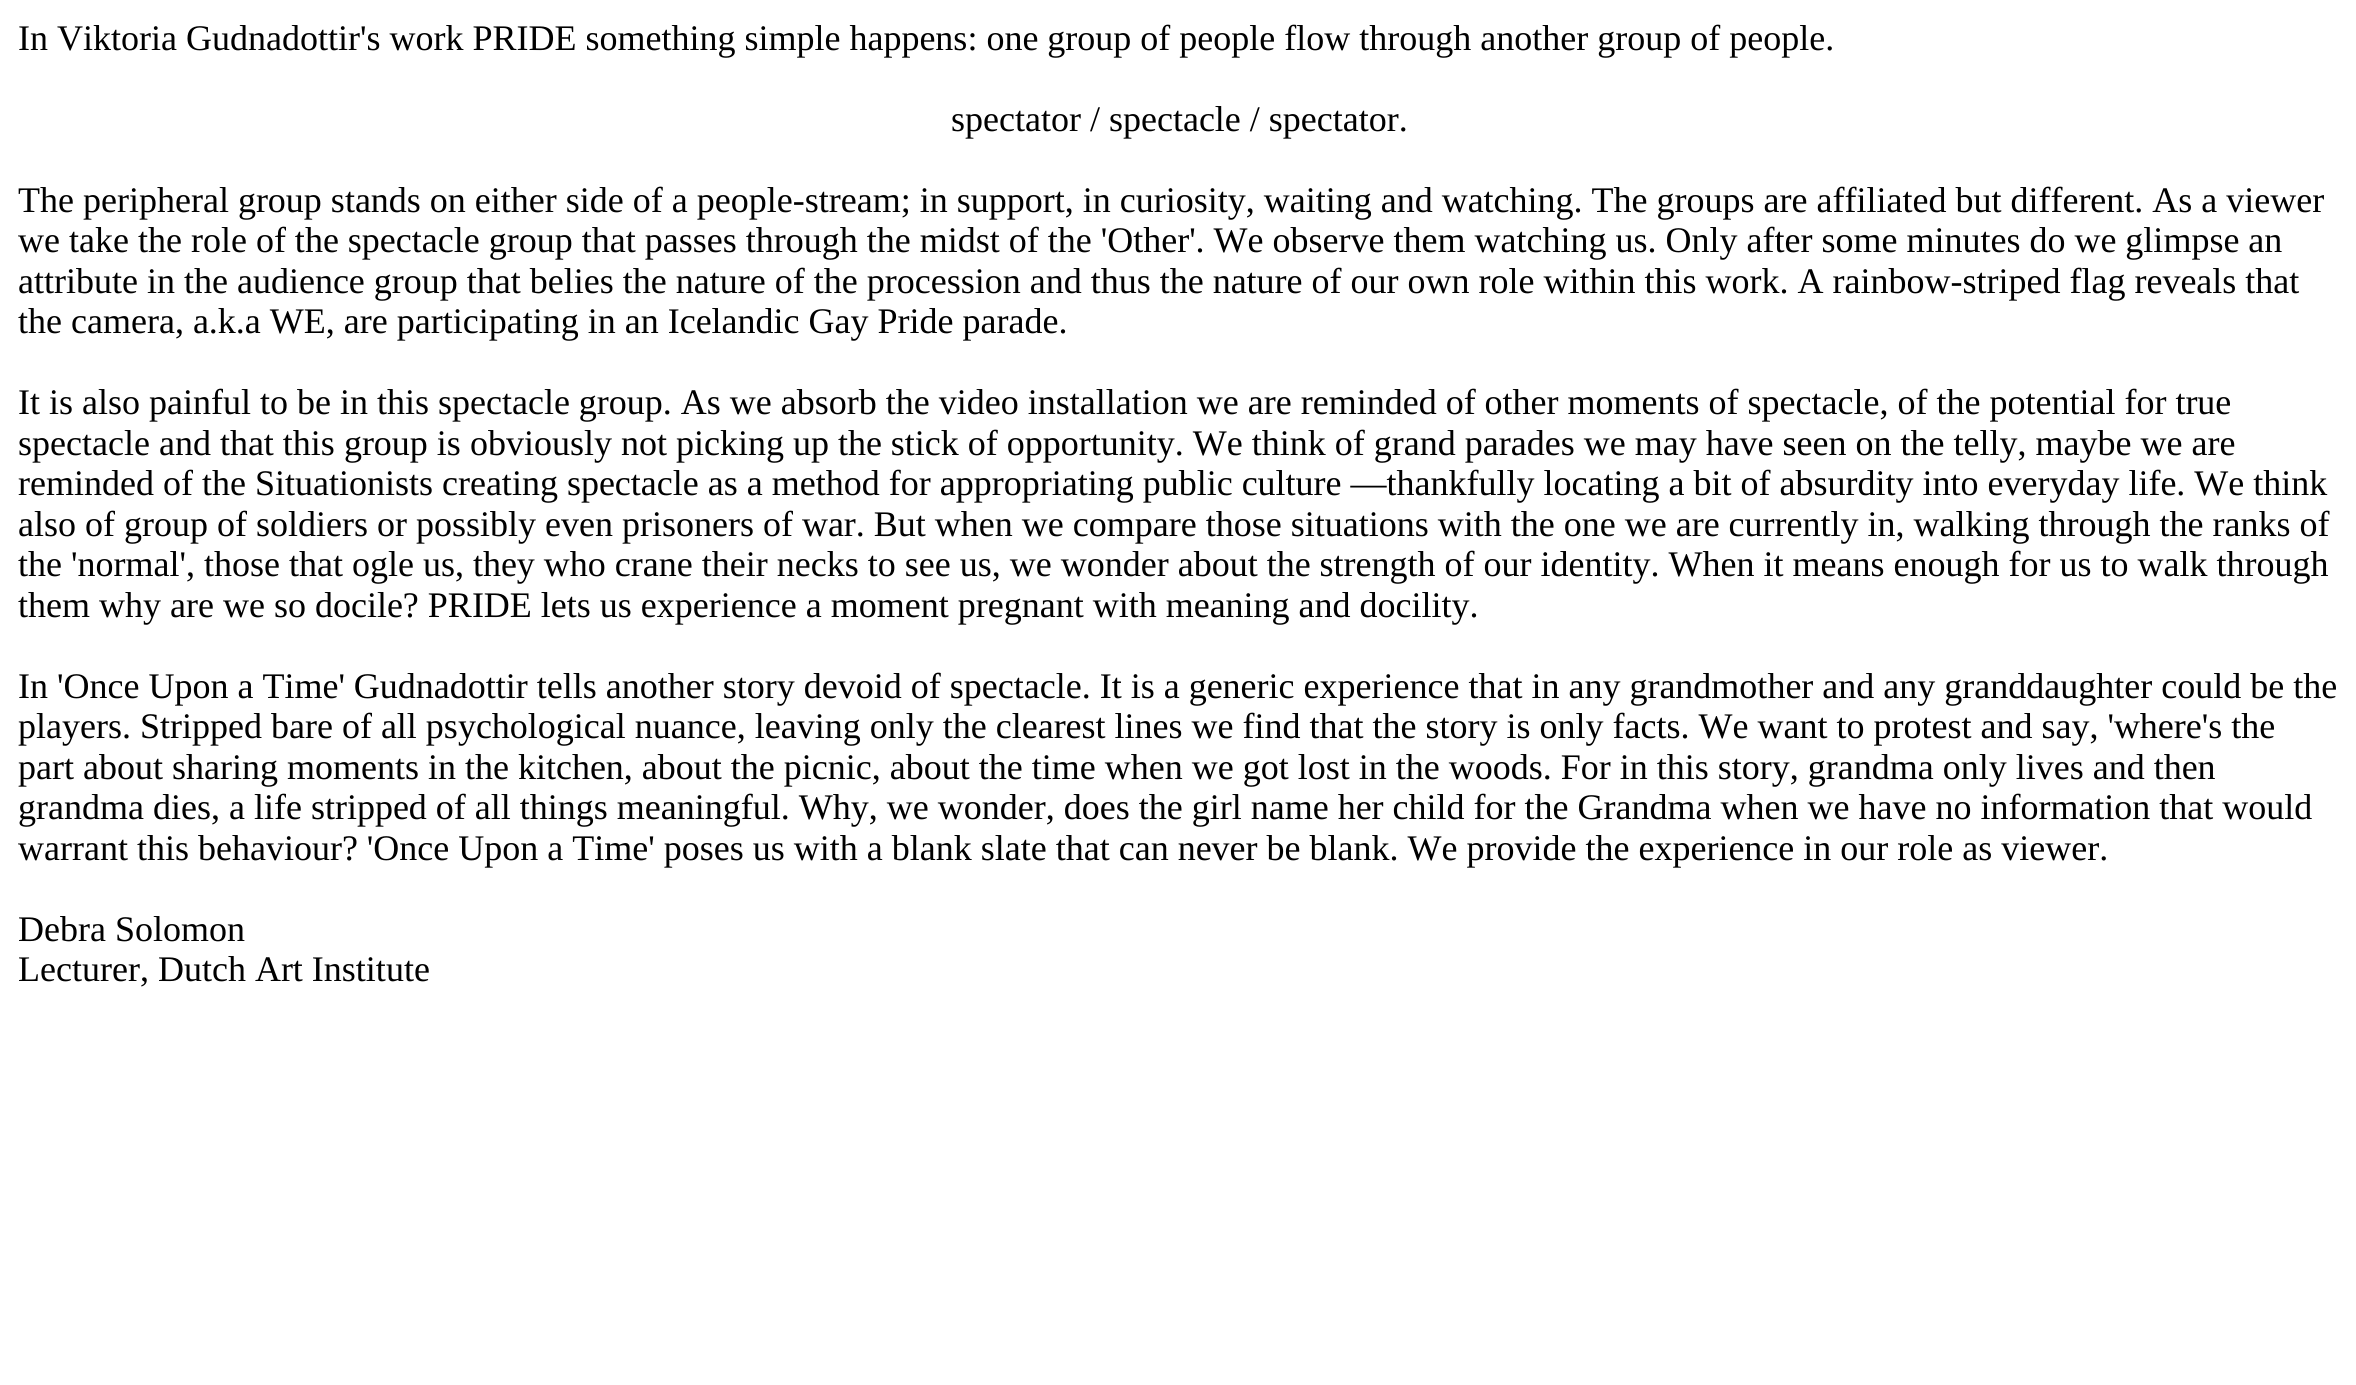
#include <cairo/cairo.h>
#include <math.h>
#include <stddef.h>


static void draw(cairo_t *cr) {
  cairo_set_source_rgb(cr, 1, 1, 1);
  cairo_paint(cr);
  cairo_select_font_face(cr, "Liberation Serif", CAIRO_FONT_SLANT_NORMAL, CAIRO_FONT_WEIGHT_NORMAL);
  cairo_set_font_size(cr, 36);
  cairo_set_source_rgb(cr, 0, 0, 0);
  cairo_move_to(cr, 18, 50);
  cairo_show_text(cr, "In Viktoria Gudnadottir's work PRIDE something simple happens: one group of people flow through another group of people.");
  cairo_move_to(cr, 951, 131);
  cairo_show_text(cr, "spectator / spectacle / spectator.");
  cairo_move_to(cr, 18, 212);
  cairo_show_text(cr, "The peripheral group stands on either side of a people-stream; in support, in curiosity, waiting and watching. The groups are affiliated but different. As a viewer");
  cairo_move_to(cr, 18, 252);
  cairo_show_text(cr, "we take the role of the spectacle group that passes through the midst of the 'Other'. We observe them watching us. Only after some minutes do we glimpse an");
  cairo_move_to(cr, 18, 293);
  cairo_show_text(cr, "attribute in the audience group that belies the nature of the procession and thus the nature of our own role within this work. A rainbow-striped flag reveals that");
  cairo_move_to(cr, 18, 333);
  cairo_show_text(cr, "the camera, a.k.a WE, are participating in an Icelandic Gay Pride parade.");
  cairo_move_to(cr, 18, 414);
  cairo_show_text(cr, "It is also painful to be in this spectacle group. As we absorb the video installation we are reminded of other moments of spectacle, of the potential for true");
  cairo_move_to(cr, 18, 455);
  cairo_show_text(cr, "spectacle and that this group is obviously not picking up the stick of opportunity. We think of grand parades we may have seen on the telly, maybe we are");
  cairo_move_to(cr, 18, 495);
  cairo_show_text(cr, "reminded of the Situationists creating spectacle as a method for appropriating public culture —thankfully locating a bit of absurdity into everyday life. We think");
  cairo_move_to(cr, 18, 536);
  cairo_show_text(cr, "also of group of soldiers or possibly even prisoners of war. But when we compare those situations with the one we are currently in, walking through the ranks of");
  cairo_move_to(cr, 18, 576);
  cairo_show_text(cr, "the 'normal', those that ogle us, they who crane their necks to see us, we wonder about the strength of our identity. When it means enough for us to walk through");
  cairo_move_to(cr, 18, 617);
  cairo_show_text(cr, "them why are we so docile? PRIDE lets us experience a moment pregnant with meaning and docility.");
  cairo_move_to(cr, 18, 698);
  cairo_show_text(cr, "In 'Once Upon a Time' Gudnadottir tells another story devoid of spectacle. It is a generic experience that in any grandmother and any granddaughter could be the");
  cairo_move_to(cr, 18, 738);
  cairo_show_text(cr, "players. Stripped bare of all psychological nuance, leaving only the clearest lines we find that the story is only facts. We want to protest and say, 'where's the");
  cairo_move_to(cr, 18, 779);
  cairo_show_text(cr, "part about sharing moments in the kitchen, about the picnic, about the time when we got lost in the woods. For in this story, grandma only lives and then");
  cairo_move_to(cr, 18, 819);
  cairo_show_text(cr, "grandma dies, a life stripped of all things meaningful. Why, we wonder, does the girl name her child for the Grandma when we have no information that would");
  cairo_move_to(cr, 18, 860);
  cairo_show_text(cr, "warrant this behaviour? 'Once Upon a Time' poses us with a blank slate that can never be blank. We provide the experience in our role as viewer.");
  cairo_move_to(cr, 18, 941);
  cairo_show_text(cr, "Debra Solomon");
  cairo_move_to(cr, 18, 981);
  cairo_show_text(cr, "Lecturer, Dutch Art Institute");
}

int main(void) {
  cairo_surface_t *surface = cairo_image_surface_create(CAIRO_FORMAT_RGB24, 2356, 1385);
  cairo_t *cr = cairo_create(surface);
  cairo_font_options_t *options = cairo_font_options_create();
  cairo_font_options_set_hint_metrics(options, CAIRO_HINT_METRICS_OFF);
  cairo_font_options_set_hint_style(options, CAIRO_HINT_STYLE_NONE);
  cairo_set_font_options(cr, options);
  cairo_set_miter_limit(cr, 4);
  draw(cr);
  cairo_surface_write_to_png(surface, "out.png");
  cairo_font_options_destroy(options);
  cairo_destroy(cr);
  cairo_surface_destroy(surface);
  return 0;
}
